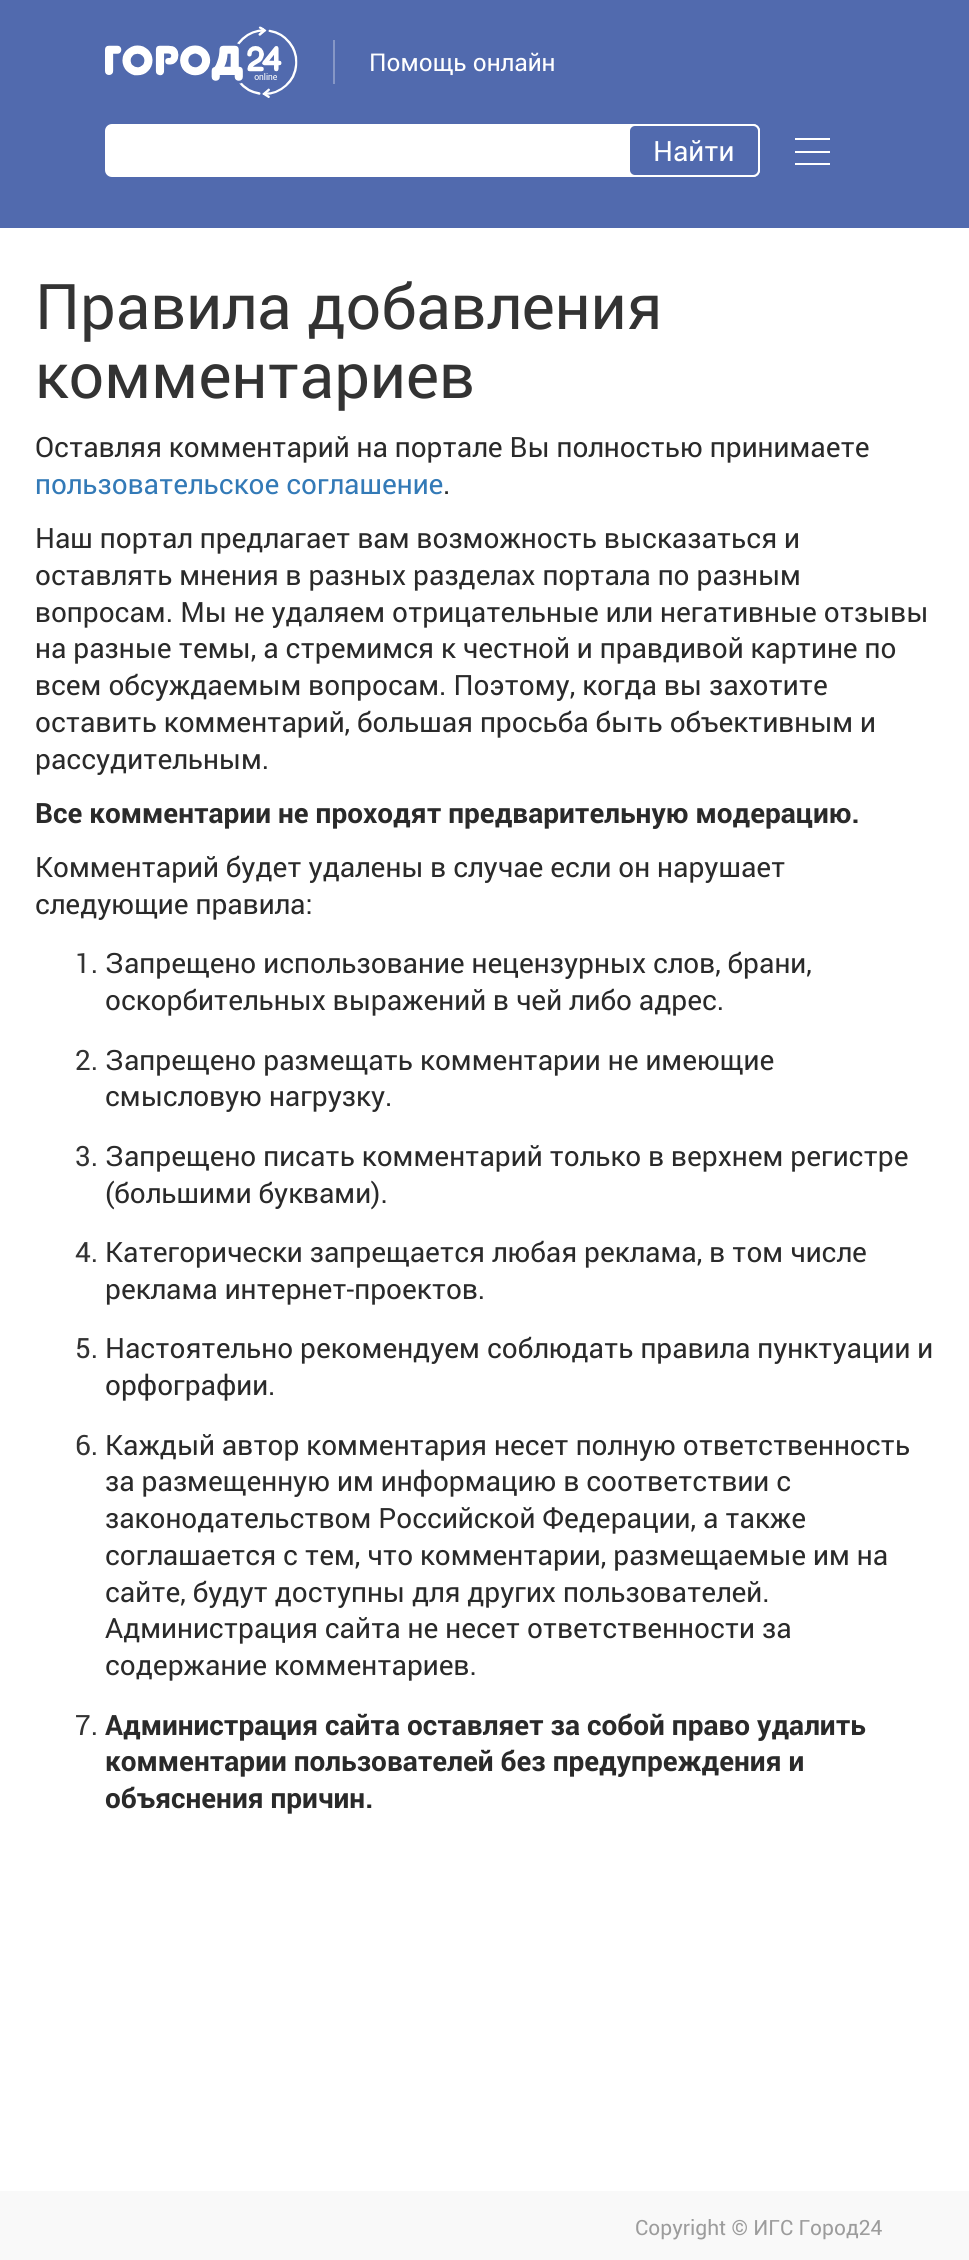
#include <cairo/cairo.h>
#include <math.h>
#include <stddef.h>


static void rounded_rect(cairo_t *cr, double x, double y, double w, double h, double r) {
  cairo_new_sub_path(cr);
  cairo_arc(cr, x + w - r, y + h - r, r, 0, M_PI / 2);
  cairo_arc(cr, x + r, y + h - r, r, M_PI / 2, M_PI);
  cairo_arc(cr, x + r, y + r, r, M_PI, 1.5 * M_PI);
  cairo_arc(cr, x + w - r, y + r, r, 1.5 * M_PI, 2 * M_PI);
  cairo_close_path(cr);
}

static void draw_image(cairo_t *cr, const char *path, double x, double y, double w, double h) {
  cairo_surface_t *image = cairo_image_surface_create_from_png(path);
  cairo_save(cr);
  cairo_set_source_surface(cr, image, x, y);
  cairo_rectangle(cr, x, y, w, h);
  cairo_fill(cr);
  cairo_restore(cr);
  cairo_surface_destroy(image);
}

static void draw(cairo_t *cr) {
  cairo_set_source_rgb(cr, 1, 1, 1);
  cairo_paint(cr);
  cairo_set_source_rgb(cr, 81 / 255.0, 106 / 255.0, 174 / 255.0);
  cairo_rectangle(cr, 0, 0, 969, 228);
  cairo_fill(cr);
  draw_image(cr, "images/1.png", 105, 26, 193, 72);
  cairo_set_source_rgb(cr, 134 / 255.0, 151 / 255.0, 198 / 255.0);
  cairo_rectangle(cr, 333, 40, 2, 44);
  cairo_fill(cr);
  cairo_set_source_rgb(cr, 1, 1, 1);
  rounded_rect(cr, 105, 124, 655, 53, 7);
  cairo_fill(cr);
  cairo_set_source_rgb(cr, 81 / 255.0, 106 / 255.0, 174 / 255.0);
  rounded_rect(cr, 629, 125, 130, 51, 6);
  cairo_fill_preserve(cr);
  cairo_set_source_rgb(cr, 1, 1, 1);
  cairo_stroke(cr);
  cairo_rectangle(cr, 795, 151, 35, 2);
  cairo_fill(cr);
  cairo_rectangle(cr, 795, 138, 35, 2);
  cairo_fill(cr);
  cairo_rectangle(cr, 795, 163, 35, 2);
  cairo_fill(cr);
  cairo_set_source_rgb(cr, 249 / 255.0, 249 / 255.0, 249 / 255.0);
  cairo_rectangle(cr, 0, 2191, 969, 69);
  cairo_fill(cr);
  cairo_select_font_face(cr, "Roboto", CAIRO_FONT_SLANT_NORMAL, CAIRO_FONT_WEIGHT_NORMAL);
  cairo_set_font_size(cr, 24.5);
  cairo_set_source_rgb(cr, 1, 1, 1);
  cairo_move_to(cr, 369, 71);
  cairo_show_text(cr, "Помощь онлайн");
  cairo_set_font_size(cr, 28);
  cairo_move_to(cr, 653, 161);
  cairo_show_text(cr, "Найти");
  cairo_set_font_size(cr, 63);
  cairo_set_source_rgb(cr, 51 / 255.0, 51 / 255.0, 51 / 255.0);
  cairo_move_to(cr, 35, 329);
  cairo_show_text(cr, "Правила добавления");
  cairo_move_to(cr, 35, 398);
  cairo_show_text(cr, "комментариев");
  cairo_set_font_size(cr, 28);
  cairo_set_source_rgb(cr, 42 / 255.0, 42 / 255.0, 42 / 255.0);
  cairo_move_to(cr, 35, 457);
  cairo_show_text(cr, "Оставляя комментарий на портале Вы полностью принимаете");
  cairo_set_source_rgb(cr, 51 / 255.0, 122 / 255.0, 183 / 255.0);
  cairo_move_to(cr, 35, 494);
  cairo_show_text(cr, "пользовательское соглашение");
  cairo_set_source_rgb(cr, 42 / 255.0, 42 / 255.0, 42 / 255.0);
  cairo_move_to(cr, 443, 494);
  cairo_show_text(cr, ".");
  cairo_move_to(cr, 35, 548);
  cairo_show_text(cr, "Наш портал предлагает вам возможность высказаться и");
  cairo_move_to(cr, 35, 585);
  cairo_show_text(cr, "оставлять мнения в разных разделах портала по разным");
  cairo_move_to(cr, 35, 622);
  cairo_show_text(cr, "вопросам. Мы не удаляем отрицательные или негативные отзывы");
  cairo_move_to(cr, 35, 658);
  cairo_show_text(cr, "на разные темы, а стремимся к честной и правдивой картине по");
  cairo_move_to(cr, 35, 695);
  cairo_show_text(cr, "всем обсуждаемым вопросам. Поэтому, когда вы захотите");
  cairo_move_to(cr, 35, 732);
  cairo_show_text(cr, "оставить комментарий, большая просьба быть объективным и");
  cairo_move_to(cr, 35, 769);
  cairo_show_text(cr, "рассудительным.");
  cairo_select_font_face(cr, "Roboto", CAIRO_FONT_SLANT_NORMAL, CAIRO_FONT_WEIGHT_BOLD);
  cairo_move_to(cr, 35, 823);
  cairo_show_text(cr, "Все комментарии не проходят предварительную модерацию.");
  cairo_select_font_face(cr, "Roboto", CAIRO_FONT_SLANT_NORMAL, CAIRO_FONT_WEIGHT_NORMAL);
  cairo_move_to(cr, 35, 877);
  cairo_show_text(cr, "Комментарий будет удалены в случае если он нарушает");
  cairo_move_to(cr, 35, 914);
  cairo_show_text(cr, "следующие правила:");
  cairo_set_source_rgb(cr, 51 / 255.0, 51 / 255.0, 51 / 255.0);
  cairo_move_to(cr, 75, 973);
  cairo_show_text(cr, "1.");
  cairo_set_source_rgb(cr, 42 / 255.0, 42 / 255.0, 42 / 255.0);
  cairo_move_to(cr, 105, 973);
  cairo_show_text(cr, "Запрещено использование нецензурных слов, брани,");
  cairo_move_to(cr, 105, 1010);
  cairo_show_text(cr, "оскорбительных выражений в чей либо адрес.");
  cairo_set_source_rgb(cr, 51 / 255.0, 51 / 255.0, 51 / 255.0);
  cairo_move_to(cr, 75, 1070);
  cairo_show_text(cr, "2.");
  cairo_set_source_rgb(cr, 42 / 255.0, 42 / 255.0, 42 / 255.0);
  cairo_move_to(cr, 105, 1070);
  cairo_show_text(cr, "Запрещено размещать комментарии не имеющие");
  cairo_move_to(cr, 105, 1106);
  cairo_show_text(cr, "смысловую нагрузку.");
  cairo_set_source_rgb(cr, 51 / 255.0, 51 / 255.0, 51 / 255.0);
  cairo_move_to(cr, 75, 1166);
  cairo_show_text(cr, "3.");
  cairo_set_source_rgb(cr, 42 / 255.0, 42 / 255.0, 42 / 255.0);
  cairo_move_to(cr, 105, 1166);
  cairo_show_text(cr, "Запрещено писать комментарий только в верхнем регистре");
  cairo_move_to(cr, 105, 1203);
  cairo_show_text(cr, "(большими буквами).");
  cairo_set_source_rgb(cr, 51 / 255.0, 51 / 255.0, 51 / 255.0);
  cairo_move_to(cr, 75, 1262);
  cairo_show_text(cr, "4.");
  cairo_set_source_rgb(cr, 42 / 255.0, 42 / 255.0, 42 / 255.0);
  cairo_move_to(cr, 105, 1262);
  cairo_show_text(cr, "Категорически запрещается любая реклама, в том числе");
  cairo_move_to(cr, 105, 1299);
  cairo_show_text(cr, "реклама интернет-проектов.");
  cairo_set_source_rgb(cr, 51 / 255.0, 51 / 255.0, 51 / 255.0);
  cairo_move_to(cr, 75, 1358);
  cairo_show_text(cr, "5.");
  cairo_set_source_rgb(cr, 42 / 255.0, 42 / 255.0, 42 / 255.0);
  cairo_move_to(cr, 105, 1358);
  cairo_show_text(cr, "Настоятельно рекомендуем соблюдать правила пунктуации и");
  cairo_move_to(cr, 105, 1395);
  cairo_show_text(cr, "орфографии.");
  cairo_set_source_rgb(cr, 51 / 255.0, 51 / 255.0, 51 / 255.0);
  cairo_move_to(cr, 75, 1455);
  cairo_show_text(cr, "6.");
  cairo_set_source_rgb(cr, 42 / 255.0, 42 / 255.0, 42 / 255.0);
  cairo_move_to(cr, 105, 1455);
  cairo_show_text(cr, "Каждый автор комментария несет полную ответственность");
  cairo_move_to(cr, 105, 1491);
  cairo_show_text(cr, "за размещенную им информацию в соответствии с");
  cairo_move_to(cr, 105, 1528);
  cairo_show_text(cr, "законодательством Российской Федерации, а также");
  cairo_move_to(cr, 105, 1565);
  cairo_show_text(cr, "соглашается с тем, что комментарии, размещаемые им на");
  cairo_move_to(cr, 105, 1602);
  cairo_show_text(cr, "сайте, будут доступны для других пользователей.");
  cairo_move_to(cr, 105, 1638);
  cairo_show_text(cr, "Администрация сайта не несет ответственности за");
  cairo_move_to(cr, 105, 1675);
  cairo_show_text(cr, "содержание комментариев.");
  cairo_set_source_rgb(cr, 51 / 255.0, 51 / 255.0, 51 / 255.0);
  cairo_move_to(cr, 75, 1735);
  cairo_show_text(cr, "7.");
  cairo_select_font_face(cr, "Roboto", CAIRO_FONT_SLANT_NORMAL, CAIRO_FONT_WEIGHT_BOLD);
  cairo_set_source_rgb(cr, 42 / 255.0, 42 / 255.0, 42 / 255.0);
  cairo_move_to(cr, 105, 1735);
  cairo_show_text(cr, "Администрация сайта оставляет за собой право удалить");
  cairo_move_to(cr, 105, 1771);
  cairo_show_text(cr, "комментарии пользователей без предупреждения и");
  cairo_move_to(cr, 105, 1808);
  cairo_show_text(cr, "объяснения причин.");
  cairo_select_font_face(cr, "Roboto", CAIRO_FONT_SLANT_NORMAL, CAIRO_FONT_WEIGHT_NORMAL);
  cairo_set_font_size(cr, 21);
  cairo_set_source_rgb(cr, 156 / 255.0, 156 / 255.0, 156 / 255.0);
  cairo_move_to(cr, 635, 2235);
  cairo_show_text(cr, "Copyright © ИГС Город24");
}

int main(void) {
  cairo_surface_t *surface = cairo_image_surface_create(CAIRO_FORMAT_RGB24, 969, 2260);
  cairo_t *cr = cairo_create(surface);
  cairo_font_options_t *options = cairo_font_options_create();
  cairo_font_options_set_hint_metrics(options, CAIRO_HINT_METRICS_OFF);
  cairo_font_options_set_hint_style(options, CAIRO_HINT_STYLE_NONE);
  cairo_set_font_options(cr, options);
  cairo_set_miter_limit(cr, 4);
  draw(cr);
  cairo_surface_write_to_png(surface, "out.png");
  cairo_font_options_destroy(options);
  cairo_destroy(cr);
  cairo_surface_destroy(surface);
  return 0;
}
